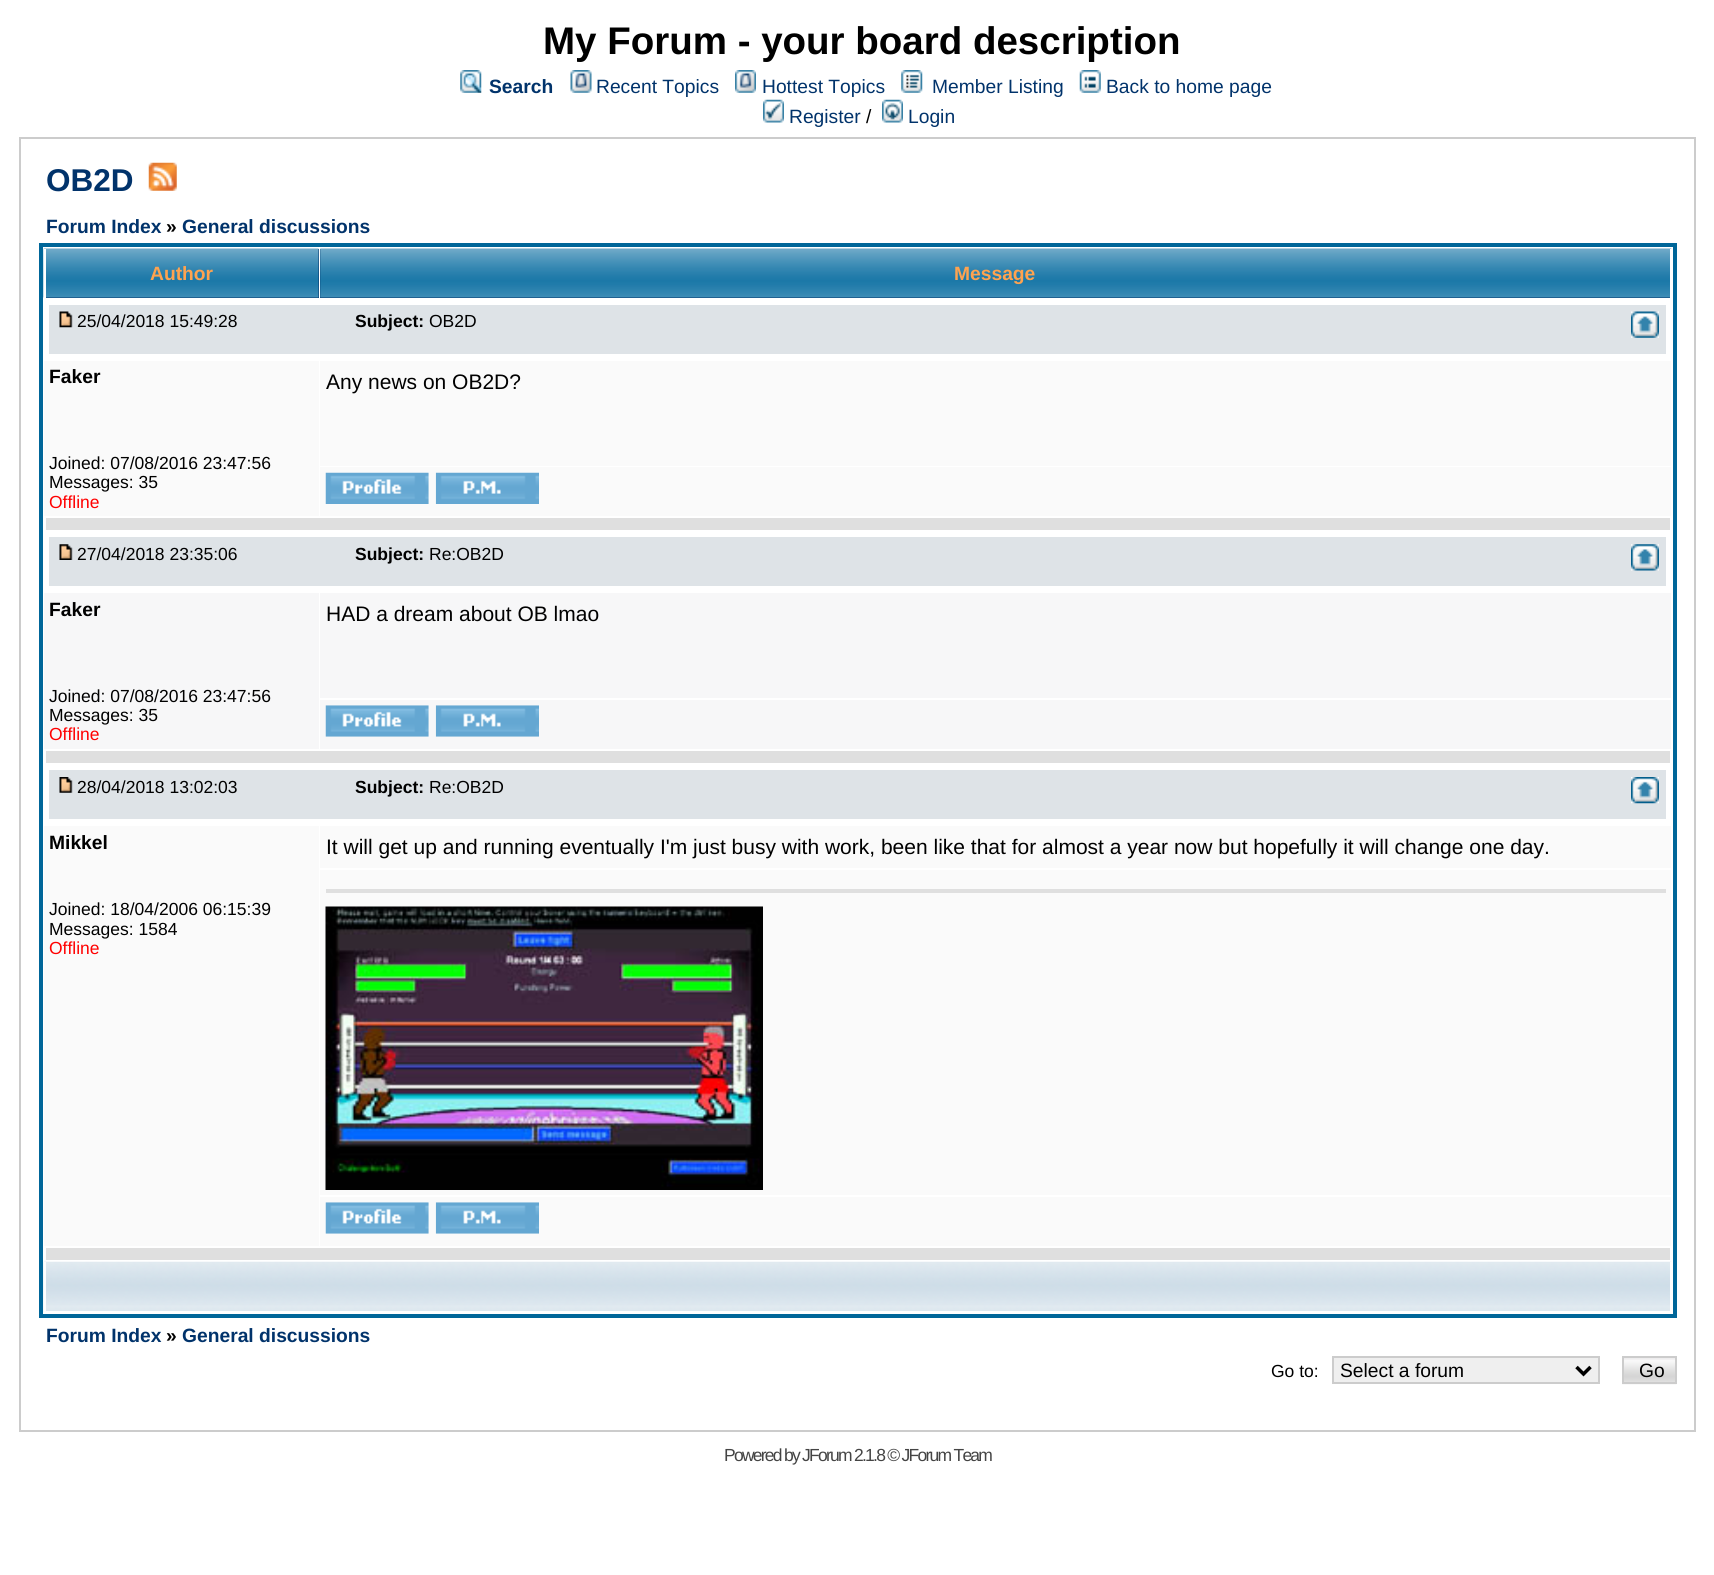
#include <cairo/cairo.h>
#include <math.h>
#include <stddef.h>


static void draw_spaced(cairo_t *cr, double x, double y, const char *s, double letter, double word) {
  cairo_move_to(cr, x, y);
  while (*s) {
    char ch[5] = {0};
    int n = 0;
    do ch[n++] = *s++; while ((*s & 0xC0) == 0x80);
    cairo_show_text(cr, ch);
    cairo_rel_move_to(cr, letter + word * (*ch == ' '), 0);
  }
}

static void draw_image(cairo_t *cr, const char *path, double x, double y, double w, double h) {
  cairo_surface_t *image = cairo_image_surface_create_from_png(path);
  cairo_save(cr);
  cairo_set_source_surface(cr, image, x, y);
  cairo_rectangle(cr, x, y, w, h);
  cairo_fill(cr);
  cairo_restore(cr);
  cairo_surface_destroy(image);
}

static void draw(cairo_t *cr) {
  cairo_set_source_rgb(cr, 1, 1, 1);
  cairo_paint(cr);
  draw_image(cr, "images/1.png", 460, 70, 22, 23);
  draw_image(cr, "images/2.png", 570, 70, 22, 23);
  draw_image(cr, "images/3.png", 735, 70, 21, 23);
  draw_image(cr, "images/4.png", 901, 70, 22, 23);
  draw_image(cr, "images/5.png", 1079, 70, 22, 23);
  draw_image(cr, "images/6.png", 763, 99, 21, 24);
  draw_image(cr, "images/7.png", 882, 99, 21, 24);
  cairo_rectangle(cr, 20, 138, 1675, 1293);
  cairo_set_source_rgb(cr, 204 / 255.0, 204 / 255.0, 204 / 255.0);
  cairo_stroke(cr);
  draw_image(cr, "images/8.png", 148, 162, 29, 29);
  cairo_rectangle(cr, 41, 245, 1634, 1071);
  cairo_set_source_rgb(cr, 0, 102 / 255.0, 153 / 255.0);
  cairo_set_line_width(cr, 4);
  cairo_stroke(cr);
  cairo_set_source_rgb(cr, 1 / 255.0, 51 / 255.0, 107 / 255.0);
  cairo_rectangle(cr, 46, 249, 273, 49);
  cairo_fill(cr);
  draw_image(cr, "images/9.png", 43, 248, 276, 50);
  cairo_set_source_rgb(cr, 1, 1, 1);
  cairo_rectangle(cr, 44, 249, 2, 49);
  cairo_fill(cr);
  cairo_set_source_rgb(cr, 1 / 255.0, 51 / 255.0, 107 / 255.0);
  cairo_rectangle(cr, 320, 249, 1350, 49);
  cairo_fill(cr);
  draw_image(cr, "images/10.png", 320, 248, 1352, 50);
  cairo_set_source_rgb(cr, 1, 1, 1);
  cairo_rectangle(cr, 1670, 249, 2, 49);
  cairo_fill(cr);
  cairo_set_source_rgb(cr, 222 / 255.0, 227 / 255.0, 231 / 255.0);
  cairo_rectangle(cr, 49, 305, 1617, 49);
  cairo_fill(cr);
  draw_image(cr, "images/11.png", 59, 311, 14, 17);
  draw_image(cr, "images/12.png", 1631, 311, 28, 27);
  cairo_set_source_rgb(cr, 250 / 255.0, 250 / 255.0, 250 / 255.0);
  cairo_rectangle(cr, 44, 361, 275, 155);
  cairo_fill(cr);
  cairo_rectangle(cr, 320, 361, 1351, 105);
  cairo_fill(cr);
  cairo_rectangle(cr, 320, 467, 1351, 49);
  cairo_fill(cr);
  draw_image(cr, "images/13.png", 325, 472, 104, 32);
  draw_image(cr, "images/14.png", 435, 472, 104, 32);
  cairo_set_source_rgb(cr, 223 / 255.0, 223 / 255.0, 223 / 255.0);
  cairo_rectangle(cr, 46, 518, 1624, 12);
  cairo_fill(cr);
  cairo_set_source_rgb(cr, 222 / 255.0, 227 / 255.0, 231 / 255.0);
  cairo_rectangle(cr, 49, 537, 1617, 49);
  cairo_fill(cr);
  draw_image(cr, "images/15.png", 59, 544, 14, 16);
  draw_image(cr, "images/16.png", 1631, 544, 28, 27);
  cairo_set_source_rgb(cr, 247 / 255.0, 247 / 255.0, 248 / 255.0);
  cairo_rectangle(cr, 44, 593, 275, 156);
  cairo_fill(cr);
  cairo_rectangle(cr, 320, 593, 1351, 105);
  cairo_fill(cr);
  cairo_rectangle(cr, 320, 700, 1351, 49);
  cairo_fill(cr);
  draw_image(cr, "images/17.png", 325, 705, 104, 32);
  draw_image(cr, "images/18.png", 435, 705, 104, 32);
  cairo_set_source_rgb(cr, 223 / 255.0, 223 / 255.0, 223 / 255.0);
  cairo_rectangle(cr, 46, 751, 1624, 12);
  cairo_fill(cr);
  cairo_set_source_rgb(cr, 222 / 255.0, 227 / 255.0, 231 / 255.0);
  cairo_rectangle(cr, 49, 770, 1617, 49);
  cairo_fill(cr);
  draw_image(cr, "images/19.png", 59, 777, 14, 16);
  draw_image(cr, "images/20.png", 1631, 777, 28, 27);
  cairo_set_source_rgb(cr, 250 / 255.0, 250 / 255.0, 250 / 255.0);
  cairo_rectangle(cr, 44, 826, 275, 420);
  cairo_fill(cr);
  cairo_rectangle(cr, 320, 826, 1351, 42);
  cairo_fill(cr);
  cairo_rectangle(cr, 320, 870, 1351, 325);
  cairo_fill(cr);
  cairo_set_source_rgb(cr, 223 / 255.0, 223 / 255.0, 223 / 255.0);
  cairo_rectangle(cr, 326, 889, 1340, 4);
  cairo_fill(cr);
  draw_image(cr, "images/21.png", 325, 906, 438, 284);
  cairo_set_source_rgb(cr, 250 / 255.0, 250 / 255.0, 250 / 255.0);
  cairo_rectangle(cr, 320, 1197, 1351, 49);
  cairo_fill(cr);
  draw_image(cr, "images/22.png", 325, 1202, 104, 32);
  draw_image(cr, "images/23.png", 435, 1202, 104, 32);
  cairo_set_source_rgb(cr, 223 / 255.0, 223 / 255.0, 223 / 255.0);
  cairo_rectangle(cr, 46, 1248, 1624, 12);
  cairo_fill(cr);
  draw_image(cr, "images/24.png", 43, 1261, 1629, 52);
  cairo_set_source_rgb(cr, 1, 1, 1);
  cairo_rectangle(cr, 1670, 1262, 2, 51);
  cairo_fill(cr);
  cairo_rectangle(cr, 44, 1311, 1627, 2);
  cairo_fill(cr);
  cairo_rectangle(cr, 44, 1262, 2, 51);
  cairo_fill(cr);
  cairo_set_source_rgb(cr, 239 / 255.0, 239 / 255.0, 239 / 255.0);
  cairo_rectangle(cr, 1333, 1357, 266, 26);
  cairo_fill_preserve(cr);
  cairo_set_source_rgb(cr, 204 / 255.0, 204 / 255.0, 204 / 255.0);
  cairo_set_line_width(cr, 2);
  cairo_stroke(cr);
  cairo_new_path(cr);
  cairo_move_to(cr, 1576.5, 1367);
  cairo_line_to(cr, 1583.5, 1374);
  cairo_line_to(cr, 1590.5, 1367);
  cairo_set_source_rgb(cr, 0, 0, 0);
  cairo_set_line_width(cr, 3.5);
  cairo_stroke(cr);
  draw_image(cr, "images/25.png", 1622, 1358, 55, 27);
  cairo_rectangle(cr, 1623, 1357, 53, 26);
  cairo_set_source_rgb(cr, 204 / 255.0, 204 / 255.0, 204 / 255.0);
  cairo_set_line_width(cr, 2);
  cairo_stroke(cr);
  cairo_select_font_face(cr, "Liberation Sans", CAIRO_FONT_SLANT_NORMAL, CAIRO_FONT_WEIGHT_BOLD);
  cairo_set_font_size(cr, 38.5);
  cairo_set_source_rgb(cr, 0, 0, 0);
  cairo_move_to(cr, 543, 54);
  cairo_show_text(cr, "My Forum - your board description");
  cairo_set_font_size(cr, 19.25);
  cairo_set_source_rgb(cr, 1 / 255.0, 51 / 255.0, 107 / 255.0);
  cairo_move_to(cr, 489, 93);
  cairo_show_text(cr, "Search");
  cairo_select_font_face(cr, "Liberation Sans", CAIRO_FONT_SLANT_NORMAL, CAIRO_FONT_WEIGHT_NORMAL);
  cairo_move_to(cr, 596, 93);
  cairo_show_text(cr, "Recent Topics");
  cairo_move_to(cr, 762, 93);
  cairo_show_text(cr, "Hottest Topics");
  cairo_move_to(cr, 932, 93);
  cairo_show_text(cr, "Member Listing");
  cairo_move_to(cr, 1106, 93);
  cairo_show_text(cr, "Back to home page");
  cairo_move_to(cr, 789, 123);
  cairo_show_text(cr, "Register");
  cairo_set_source_rgb(cr, 0, 0, 0);
  cairo_move_to(cr, 866, 123);
  cairo_show_text(cr, "/");
  cairo_set_source_rgb(cr, 1 / 255.0, 51 / 255.0, 107 / 255.0);
  cairo_move_to(cr, 908, 123);
  cairo_show_text(cr, "Login");
  cairo_select_font_face(cr, "Liberation Sans", CAIRO_FONT_SLANT_NORMAL, CAIRO_FONT_WEIGHT_BOLD);
  cairo_set_font_size(cr, 31.5);
  cairo_move_to(cr, 46, 191);
  cairo_show_text(cr, "OB2D");
  cairo_set_font_size(cr, 19.25);
  cairo_move_to(cr, 46, 233);
  cairo_show_text(cr, "Forum Index");
  cairo_set_source_rgb(cr, 0, 0, 0);
  cairo_move_to(cr, 166, 233);
  cairo_show_text(cr, "»");
  cairo_set_source_rgb(cr, 1 / 255.0, 51 / 255.0, 107 / 255.0);
  cairo_move_to(cr, 182, 233);
  cairo_show_text(cr, "General discussions");
  cairo_set_source_rgb(cr, 1, 163 / 255.0, 79 / 255.0);
  cairo_move_to(cr, 150, 280);
  cairo_show_text(cr, "Author");
  cairo_move_to(cr, 954, 280);
  cairo_show_text(cr, "Message");
  cairo_select_font_face(cr, "Liberation Sans", CAIRO_FONT_SLANT_NORMAL, CAIRO_FONT_WEIGHT_NORMAL);
  cairo_set_font_size(cr, 17.5);
  cairo_set_source_rgb(cr, 0, 0, 0);
  cairo_move_to(cr, 77, 327);
  cairo_show_text(cr, "25/04/2018 15:49:28");
  cairo_select_font_face(cr, "Liberation Sans", CAIRO_FONT_SLANT_NORMAL, CAIRO_FONT_WEIGHT_BOLD);
  cairo_move_to(cr, 355, 327);
  cairo_show_text(cr, "Subject:");
  cairo_select_font_face(cr, "Liberation Sans", CAIRO_FONT_SLANT_NORMAL, CAIRO_FONT_WEIGHT_NORMAL);
  cairo_move_to(cr, 429, 327);
  cairo_show_text(cr, "OB2D");
  cairo_select_font_face(cr, "Liberation Sans", CAIRO_FONT_SLANT_NORMAL, CAIRO_FONT_WEIGHT_BOLD);
  cairo_set_font_size(cr, 19.25);
  cairo_move_to(cr, 49, 383);
  cairo_show_text(cr, "Faker");
  cairo_select_font_face(cr, "Liberation Sans", CAIRO_FONT_SLANT_NORMAL, CAIRO_FONT_WEIGHT_NORMAL);
  cairo_set_font_size(cr, 17.5);
  cairo_move_to(cr, 49, 469);
  cairo_show_text(cr, "Joined: 07/08/2016 23:47:56");
  cairo_move_to(cr, 49, 488);
  cairo_show_text(cr, "Messages: 35");
  cairo_set_source_rgb(cr, 1, 0, 0);
  cairo_move_to(cr, 49, 508);
  cairo_show_text(cr, "Offline");
  cairo_set_font_size(cr, 21);
  cairo_set_source_rgb(cr, 0, 0, 0);
  cairo_move_to(cr, 326, 389);
  cairo_show_text(cr, "Any news on OB2D?");
  cairo_set_font_size(cr, 17.5);
  cairo_move_to(cr, 77, 560);
  cairo_show_text(cr, "27/04/2018 23:35:06");
  cairo_select_font_face(cr, "Liberation Sans", CAIRO_FONT_SLANT_NORMAL, CAIRO_FONT_WEIGHT_BOLD);
  cairo_move_to(cr, 355, 560);
  cairo_show_text(cr, "Subject:");
  cairo_select_font_face(cr, "Liberation Sans", CAIRO_FONT_SLANT_NORMAL, CAIRO_FONT_WEIGHT_NORMAL);
  cairo_move_to(cr, 429, 560);
  cairo_show_text(cr, "Re:OB2D");
  cairo_select_font_face(cr, "Liberation Sans", CAIRO_FONT_SLANT_NORMAL, CAIRO_FONT_WEIGHT_BOLD);
  cairo_set_font_size(cr, 19.25);
  cairo_move_to(cr, 49, 616);
  cairo_show_text(cr, "Faker");
  cairo_select_font_face(cr, "Liberation Sans", CAIRO_FONT_SLANT_NORMAL, CAIRO_FONT_WEIGHT_NORMAL);
  cairo_set_font_size(cr, 17.5);
  cairo_move_to(cr, 49, 702);
  cairo_show_text(cr, "Joined: 07/08/2016 23:47:56");
  cairo_move_to(cr, 49, 721);
  cairo_show_text(cr, "Messages: 35");
  cairo_set_source_rgb(cr, 1, 0, 0);
  cairo_move_to(cr, 49, 740);
  cairo_show_text(cr, "Offline");
  cairo_set_font_size(cr, 21);
  cairo_set_source_rgb(cr, 0, 0, 0);
  cairo_move_to(cr, 326, 621);
  cairo_show_text(cr, "HAD a dream about OB lmao");
  cairo_set_font_size(cr, 17.5);
  cairo_move_to(cr, 77, 793);
  cairo_show_text(cr, "28/04/2018 13:02:03");
  cairo_select_font_face(cr, "Liberation Sans", CAIRO_FONT_SLANT_NORMAL, CAIRO_FONT_WEIGHT_BOLD);
  cairo_move_to(cr, 355, 793);
  cairo_show_text(cr, "Subject:");
  cairo_select_font_face(cr, "Liberation Sans", CAIRO_FONT_SLANT_NORMAL, CAIRO_FONT_WEIGHT_NORMAL);
  cairo_move_to(cr, 429, 793);
  cairo_show_text(cr, "Re:OB2D");
  cairo_select_font_face(cr, "Liberation Sans", CAIRO_FONT_SLANT_NORMAL, CAIRO_FONT_WEIGHT_BOLD);
  cairo_set_font_size(cr, 19.25);
  cairo_move_to(cr, 49, 849);
  cairo_show_text(cr, "Mikkel");
  cairo_select_font_face(cr, "Liberation Sans", CAIRO_FONT_SLANT_NORMAL, CAIRO_FONT_WEIGHT_NORMAL);
  cairo_set_font_size(cr, 17.5);
  cairo_move_to(cr, 49, 915);
  cairo_show_text(cr, "Joined: 18/04/2006 06:15:39");
  cairo_move_to(cr, 49, 935);
  cairo_show_text(cr, "Messages: 1584");
  cairo_set_source_rgb(cr, 1, 0, 0);
  cairo_move_to(cr, 49, 954);
  cairo_show_text(cr, "Offline");
  cairo_set_font_size(cr, 21);
  cairo_set_source_rgb(cr, 0, 0, 0);
  cairo_move_to(cr, 326, 854);
  cairo_show_text(cr, "It will get up and running eventually I'm just busy with work, been like that for almost a year now but hopefully it will change one day.");
  cairo_select_font_face(cr, "Liberation Sans", CAIRO_FONT_SLANT_NORMAL, CAIRO_FONT_WEIGHT_BOLD);
  cairo_set_font_size(cr, 19.25);
  cairo_set_source_rgb(cr, 1 / 255.0, 51 / 255.0, 107 / 255.0);
  cairo_move_to(cr, 46, 1342);
  cairo_show_text(cr, "Forum Index");
  cairo_set_source_rgb(cr, 0, 0, 0);
  cairo_move_to(cr, 166, 1342);
  cairo_show_text(cr, "»");
  cairo_set_source_rgb(cr, 1 / 255.0, 51 / 255.0, 107 / 255.0);
  cairo_move_to(cr, 182, 1342);
  cairo_show_text(cr, "General discussions");
  cairo_select_font_face(cr, "Liberation Sans", CAIRO_FONT_SLANT_NORMAL, CAIRO_FONT_WEIGHT_NORMAL);
  cairo_set_font_size(cr, 17.5);
  cairo_set_source_rgb(cr, 0, 0, 0);
  cairo_move_to(cr, 1271, 1377);
  cairo_show_text(cr, "Go to:");
  cairo_set_font_size(cr, 19.25);
  cairo_move_to(cr, 1340, 1377);
  cairo_show_text(cr, "Select a forum");
  cairo_move_to(cr, 1639, 1377);
  cairo_show_text(cr, "Go");
  cairo_set_font_size(cr, 17.5);
  cairo_set_source_rgb(cr, 68 / 255.0, 68 / 255.0, 68 / 255.0);
  draw_spaced(cr, 724, 1461, "Powered by JForum 2.1.8 © JForum Team", -1.75, 0);
}

int main(void) {
  cairo_surface_t *surface = cairo_image_surface_create(CAIRO_FORMAT_RGB24, 1714, 1575);
  cairo_t *cr = cairo_create(surface);
  cairo_font_options_t *options = cairo_font_options_create();
  cairo_font_options_set_hint_metrics(options, CAIRO_HINT_METRICS_OFF);
  cairo_font_options_set_hint_style(options, CAIRO_HINT_STYLE_NONE);
  cairo_set_font_options(cr, options);
  cairo_set_miter_limit(cr, 4);
  draw(cr);
  cairo_surface_write_to_png(surface, "out.png");
  cairo_font_options_destroy(options);
  cairo_destroy(cr);
  cairo_surface_destroy(surface);
  return 0;
}
